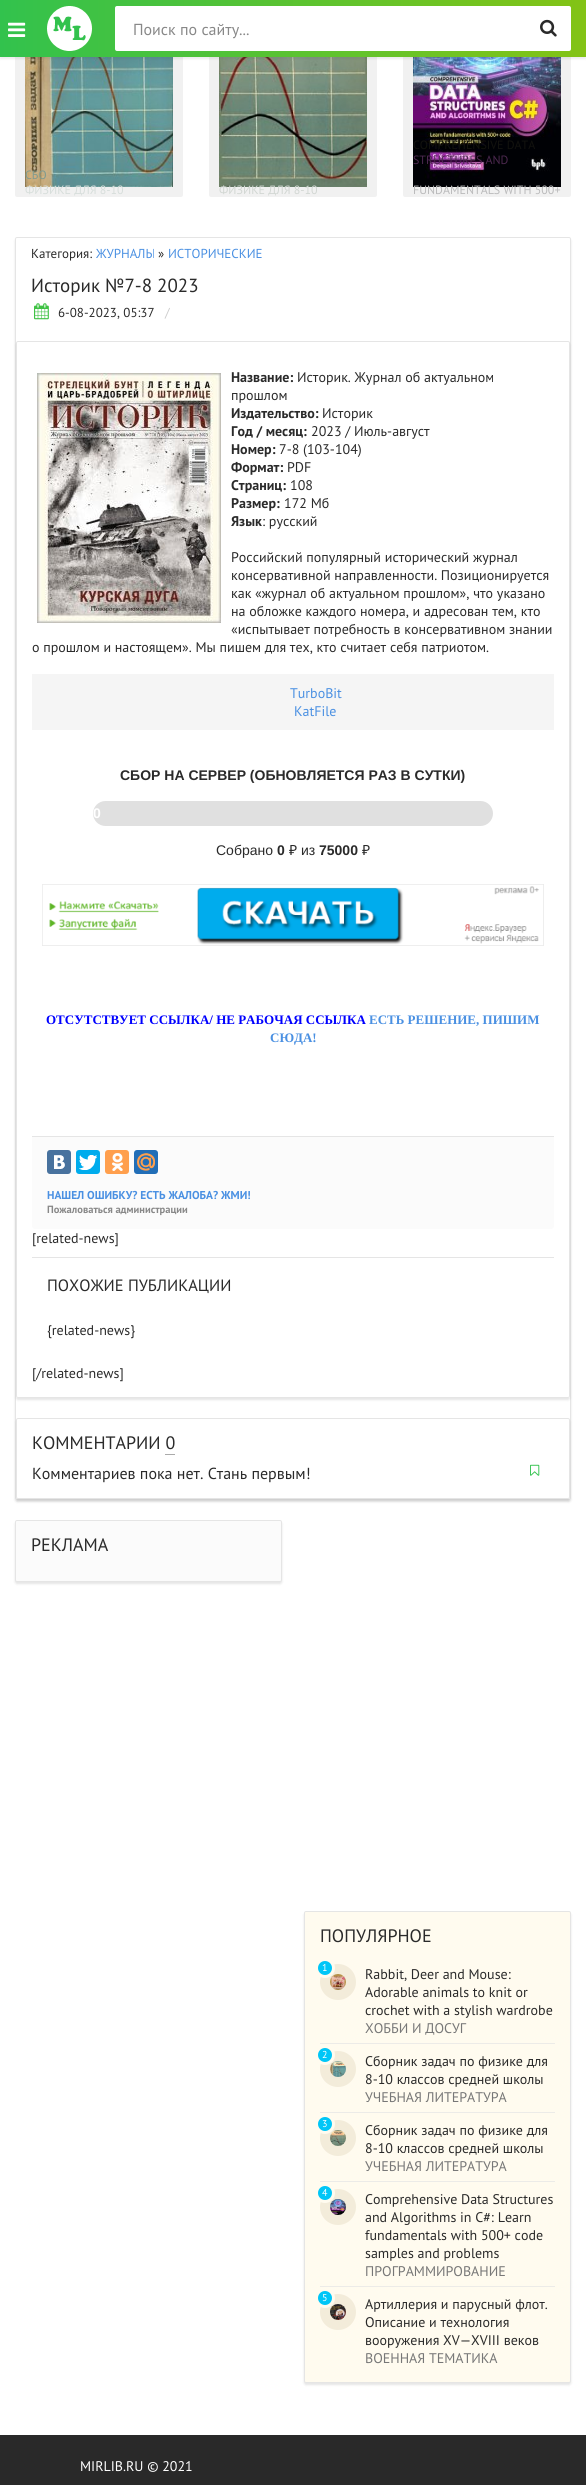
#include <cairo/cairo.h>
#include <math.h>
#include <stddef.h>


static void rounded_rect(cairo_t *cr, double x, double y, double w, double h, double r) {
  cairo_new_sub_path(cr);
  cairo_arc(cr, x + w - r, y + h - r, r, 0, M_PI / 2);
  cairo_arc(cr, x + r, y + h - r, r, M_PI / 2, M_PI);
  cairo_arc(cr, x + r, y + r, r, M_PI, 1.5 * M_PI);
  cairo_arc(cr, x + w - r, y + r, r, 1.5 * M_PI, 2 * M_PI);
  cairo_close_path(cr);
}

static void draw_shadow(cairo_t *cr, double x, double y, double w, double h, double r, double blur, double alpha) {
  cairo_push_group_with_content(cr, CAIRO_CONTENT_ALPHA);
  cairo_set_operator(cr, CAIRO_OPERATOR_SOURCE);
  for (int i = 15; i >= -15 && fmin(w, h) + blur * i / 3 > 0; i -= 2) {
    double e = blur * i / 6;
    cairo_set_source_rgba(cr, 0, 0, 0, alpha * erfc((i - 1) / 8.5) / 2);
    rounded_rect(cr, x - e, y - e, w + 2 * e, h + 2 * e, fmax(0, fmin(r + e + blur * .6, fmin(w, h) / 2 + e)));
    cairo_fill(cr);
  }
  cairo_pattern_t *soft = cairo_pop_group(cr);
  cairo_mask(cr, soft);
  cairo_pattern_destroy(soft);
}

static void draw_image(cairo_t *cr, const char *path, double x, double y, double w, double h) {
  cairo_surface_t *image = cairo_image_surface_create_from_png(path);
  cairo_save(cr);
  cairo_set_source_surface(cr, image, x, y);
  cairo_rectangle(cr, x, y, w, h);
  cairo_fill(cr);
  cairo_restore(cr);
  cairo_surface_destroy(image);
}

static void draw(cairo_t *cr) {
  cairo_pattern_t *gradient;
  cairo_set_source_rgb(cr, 1, 1, 1);
  cairo_paint(cr);
  cairo_set_source_rgb(cr, 241 / 255.0, 241 / 255.0, 241 / 255.0);
  rounded_rect(cr, 15, -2, 168, 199, 2);
  cairo_fill(cr);
  draw_image(cr, "images/4.png", 25, 57, 148, 130);
  rounded_rect(cr, 209, -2, 168, 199, 2);
  cairo_fill(cr);
  draw_image(cr, "images/5.png", 219, 57, 148, 130);
  rounded_rect(cr, 403, -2, 168, 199, 2);
  cairo_fill(cr);
  draw_image(cr, "images/6.png", 413, 57, 148, 130);
  cairo_set_source_rgb(cr, 68 / 255.0, 68 / 255.0, 68 / 255.0);
  draw_shadow(cr, 0, 2, 586, 57, 0, 1, 0.1);
  gradient = cairo_pattern_create_linear(0, 29, 586, 28);
  cairo_pattern_add_color_stop_rgba(gradient, 0, 50 / 255.0, 194 / 255.0, 77 / 255.0, 1);
  cairo_pattern_add_color_stop_rgba(gradient, 1, 131 / 255.0, 195 / 255.0, 21 / 255.0, 1);
  cairo_set_source(cr, gradient);
  cairo_pattern_destroy(gradient);
  cairo_rectangle(cr, 0, 0, 586, 57);
  cairo_fill(cr);
  draw_image(cr, "images/1.png", 8, 22, 18, 15);
  draw_image(cr, "images/2.png", 47, 6, 45, 45);
  cairo_set_source_rgb(cr, 1, 1, 1);
  rounded_rect(cr, 115, 6, 456, 45, 2);
  cairo_fill(cr);
  draw_image(cr, "images/3.png", 540, 19, 17, 18);
  cairo_save(cr);
  cairo_set_fill_rule(cr, CAIRO_FILL_RULE_EVEN_ODD);
  cairo_new_path(cr);
  cairo_move_to(cr, 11, 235);
  cairo_line_to(cr, 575, 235);
  cairo_line_to(cr, 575, 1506);
  cairo_line_to(cr, 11, 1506);
  cairo_close_path(cr);
  cairo_move_to(cr, 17, 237);
  cairo_line_to(cr, 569, 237);
  cairo_curve_to(cr, 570, 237, 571, 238, 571, 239);
  cairo_line_to(cr, 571, 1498);
  cairo_curve_to(cr, 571, 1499, 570, 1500, 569, 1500);
  cairo_line_to(cr, 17, 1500);
  cairo_curve_to(cr, 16, 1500, 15, 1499, 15, 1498);
  cairo_line_to(cr, 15, 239);
  cairo_curve_to(cr, 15, 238, 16, 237, 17, 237);
  cairo_close_path(cr);
  cairo_clip(cr);
  cairo_set_source_rgb(cr, 0, 0, 0);
  draw_shadow(cr, 15, 239, 556, 1263, 2, 1, 0.1);
  cairo_restore(cr);
  rounded_rect(cr, 15.5, 237.5, 555, 1262, 1.5);
  cairo_set_source_rgb(cr, 229 / 255.0, 229 / 255.0, 229 / 255.0);
  cairo_set_line_width(cr, 1);
  cairo_stroke(cr);
  draw_image(cr, "images/7.png", 34, 303, 15, 17);
  cairo_set_source_rgb(cr, 0, 0, 0);
  draw_shadow(cr, 16, 1420, 554, 81, 2, 1, 0.1);
  cairo_set_source_rgb(cr, 1, 1, 1);
  rounded_rect(cr, 16.5, 1418.5, 553, 80, 1.5);
  cairo_fill_preserve(cr);
  cairo_set_source_rgb(cr, 229 / 255.0, 229 / 255.0, 229 / 255.0);
  cairo_stroke(cr);
  draw_image(cr, "images/8.png", 530, 1464, 10, 12);
  cairo_save(cr);
  cairo_set_fill_rule(cr, CAIRO_FILL_RULE_EVEN_ODD);
  cairo_new_path(cr);
  cairo_move_to(cr, 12, 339);
  cairo_line_to(cr, 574, 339);
  cairo_line_to(cr, 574, 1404);
  cairo_line_to(cr, 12, 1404);
  cairo_close_path(cr);
  cairo_move_to(cr, 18, 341);
  cairo_line_to(cr, 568, 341);
  cairo_curve_to(cr, 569, 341, 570, 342, 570, 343);
  cairo_line_to(cr, 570, 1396);
  cairo_curve_to(cr, 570, 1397, 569, 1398, 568, 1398);
  cairo_line_to(cr, 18, 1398);
  cairo_curve_to(cr, 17, 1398, 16, 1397, 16, 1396);
  cairo_line_to(cr, 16, 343);
  cairo_curve_to(cr, 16, 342, 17, 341, 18, 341);
  cairo_close_path(cr);
  cairo_clip(cr);
  cairo_set_source_rgb(cr, 0, 0, 0);
  draw_shadow(cr, 16, 343, 554, 1057, 2, 1, 0.1);
  cairo_restore(cr);
  rounded_rect(cr, 16.5, 341.5, 553, 1056, 1.5);
  cairo_stroke(cr);
  draw_image(cr, "images/9.png", 37, 373, 184, 250);
  cairo_set_source_rgb(cr, 245 / 255.0, 245 / 255.0, 245 / 255.0);
  cairo_rectangle(cr, 32, 674, 522, 56);
  cairo_fill(cr);
  cairo_set_source_rgb(cr, 224 / 255.0, 224 / 255.0, 224 / 255.0);
  rounded_rect(cr, 93, 801, 400, 25, 12.5);
  cairo_fill(cr);
  draw_image(cr, "images/10.png", 42, 884, 502, 62);
  cairo_set_source_rgb(cr, 251 / 255.0, 251 / 255.0, 251 / 255.0);
  cairo_new_path(cr);
  cairo_move_to(cr, 32, 1136);
  cairo_line_to(cr, 554, 1136);
  cairo_line_to(cr, 554, 1226);
  cairo_curve_to(cr, 554, 1227.5, 552.5, 1229, 551, 1229);
  cairo_line_to(cr, 35, 1229);
  cairo_curve_to(cr, 33.5, 1229, 32, 1227.5, 32, 1226);
  cairo_close_path(cr);
  cairo_fill(cr);
  cairo_set_source_rgb(cr, 229 / 255.0, 229 / 255.0, 229 / 255.0);
  cairo_rectangle(cr, 32, 1136, 522, 1);
  cairo_fill(cr);
  cairo_set_source_rgb(cr, 72 / 255.0, 114 / 255.0, 158 / 255.0);
  rounded_rect(cr, 47, 1150, 24, 24, 3);
  cairo_fill(cr);
  draw_image(cr, "images/11.png", 54, 1155, 11, 14);
  cairo_set_source_rgb(cr, 0, 172 / 255.0, 237 / 255.0);
  rounded_rect(cr, 76, 1150, 24, 24, 3);
  cairo_fill(cr);
  draw_image(cr, "images/12.png", 79, 1155, 18, 15);
  cairo_set_source_rgb(cr, 1, 159 / 255.0, 77 / 255.0);
  rounded_rect(cr, 105, 1150, 24, 24, 3);
  cairo_fill(cr);
  draw_image(cr, "images/13.png", 112, 1153, 11, 18);
  cairo_set_source_rgb(cr, 34 / 255.0, 110 / 255.0, 183 / 255.0);
  rounded_rect(cr, 134, 1150, 24, 24, 3);
  cairo_fill(cr);
  draw_image(cr, "images/14.png", 137, 1153, 18, 18);
  cairo_set_source_rgb(cr, 229 / 255.0, 229 / 255.0, 229 / 255.0);
  cairo_rectangle(cr, 32, 1257, 522, 1);
  cairo_fill(cr);
  cairo_set_source_rgb(cr, 170 / 255.0, 170 / 255.0, 170 / 255.0);
  cairo_rectangle(cr, 165, 1454, 10, 1);
  cairo_fill(cr);
  cairo_set_source_rgb(cr, 0, 0, 0);
  draw_shadow(cr, 15, 1522, 267, 62, 2, 1, 0.1);
  cairo_set_source_rgb(cr, 251 / 255.0, 251 / 255.0, 251 / 255.0);
  rounded_rect(cr, 15.5, 1520.5, 266, 61, 1.5);
  cairo_fill_preserve(cr);
  cairo_set_source_rgb(cr, 229 / 255.0, 229 / 255.0, 229 / 255.0);
  cairo_stroke(cr);
  cairo_set_source_rgb(cr, 0, 0, 0);
  draw_shadow(cr, 304, 1913, 267, 472, 2, 1, 0.1);
  cairo_set_source_rgb(cr, 1, 251 / 255.0, 239 / 255.0);
  rounded_rect(cr, 304.5, 1911.5, 266, 471, 1.5);
  cairo_fill_preserve(cr);
  cairo_set_source_rgb(cr, 229 / 255.0, 229 / 255.0, 229 / 255.0);
  cairo_stroke(cr);
  cairo_set_source_rgb(cr, 236 / 255.0, 235 / 255.0, 232 / 255.0);
  cairo_rectangle(cr, 320, 2043, 235, 1);
  cairo_fill(cr);
  cairo_set_source_rgb(cr, 243 / 255.0, 236 / 255.0, 218 / 255.0);
  cairo_arc(cr, 338, 1982, 18, 0, 2 * M_PI);
  cairo_fill(cr);
  draw_image(cr, "images/15.png", 330, 1974, 16, 16);
  cairo_set_source_rgb(cr, 0, 198 / 255.0, 247 / 255.0);
  cairo_arc(cr, 325, 1968, 8.5, 0, 2 * M_PI);
  cairo_fill_preserve(cr);
  cairo_set_source_rgb(cr, 1, 251 / 255.0, 239 / 255.0);
  cairo_set_line_width(cr, 3);
  cairo_stroke(cr);
  cairo_set_source_rgb(cr, 236 / 255.0, 235 / 255.0, 232 / 255.0);
  cairo_rectangle(cr, 320, 2112, 235, 1);
  cairo_fill(cr);
  cairo_set_source_rgb(cr, 243 / 255.0, 236 / 255.0, 218 / 255.0);
  cairo_arc(cr, 338, 2069, 18, 0, 2 * M_PI);
  cairo_fill(cr);
  draw_image(cr, "images/16.png", 330, 2061, 16, 16);
  cairo_set_source_rgb(cr, 0, 198 / 255.0, 247 / 255.0);
  cairo_arc(cr, 325, 2055, 8.5, 0, 2 * M_PI);
  cairo_fill_preserve(cr);
  cairo_set_source_rgb(cr, 1, 251 / 255.0, 239 / 255.0);
  cairo_stroke(cr);
  cairo_set_source_rgb(cr, 236 / 255.0, 235 / 255.0, 232 / 255.0);
  cairo_rectangle(cr, 320, 2181, 235, 1);
  cairo_fill(cr);
  cairo_set_source_rgb(cr, 243 / 255.0, 236 / 255.0, 218 / 255.0);
  cairo_arc(cr, 338, 2138, 18, 0, 2 * M_PI);
  cairo_fill(cr);
  draw_image(cr, "images/17.png", 330, 2130, 16, 16);
  cairo_set_source_rgb(cr, 0, 198 / 255.0, 247 / 255.0);
  cairo_arc(cr, 325, 2124, 8.5, 0, 2 * M_PI);
  cairo_fill_preserve(cr);
  cairo_set_source_rgb(cr, 1, 251 / 255.0, 239 / 255.0);
  cairo_stroke(cr);
  cairo_set_source_rgb(cr, 236 / 255.0, 235 / 255.0, 232 / 255.0);
  cairo_rectangle(cr, 320, 2286, 235, 1);
  cairo_fill(cr);
  cairo_set_source_rgb(cr, 243 / 255.0, 236 / 255.0, 218 / 255.0);
  cairo_arc(cr, 338, 2207, 18, 0, 2 * M_PI);
  cairo_fill(cr);
  draw_image(cr, "images/18.png", 330, 2199, 16, 16);
  cairo_set_source_rgb(cr, 0, 198 / 255.0, 247 / 255.0);
  cairo_arc(cr, 325, 2193, 8.5, 0, 2 * M_PI);
  cairo_fill_preserve(cr);
  cairo_set_source_rgb(cr, 1, 251 / 255.0, 239 / 255.0);
  cairo_stroke(cr);
  cairo_set_source_rgb(cr, 243 / 255.0, 236 / 255.0, 218 / 255.0);
  cairo_arc(cr, 338, 2312, 18, 0, 2 * M_PI);
  cairo_fill(cr);
  draw_image(cr, "images/19.png", 330, 2304, 16, 16);
  cairo_set_source_rgb(cr, 0, 198 / 255.0, 247 / 255.0);
  cairo_arc(cr, 325, 2298, 8.5, 0, 2 * M_PI);
  cairo_fill_preserve(cr);
  cairo_set_source_rgb(cr, 1, 251 / 255.0, 239 / 255.0);
  cairo_stroke(cr);
  cairo_set_source_rgb(cr, 41 / 255.0, 41 / 255.0, 41 / 255.0);
  cairo_rectangle(cr, 0, 2435, 586, 50);
  cairo_fill(cr);
  cairo_select_font_face(cr, "PT Sans", CAIRO_FONT_SLANT_NORMAL, CAIRO_FONT_WEIGHT_NORMAL);
  cairo_set_font_size(cr, 16);
  cairo_set_source_rgb(cr, 136 / 255.0, 136 / 255.0, 136 / 255.0);
  cairo_move_to(cr, 133, 35);
  cairo_show_text(cr, "Поиск по сайту...");
  cairo_set_font_size(cr, 12);
  cairo_set_source_rgb(cr, 127 / 255.0, 155 / 255.0, 143 / 255.0);
  cairo_move_to(cr, 25, 179);
  cairo_show_text(cr, "СБО");
  cairo_set_source_rgb(cr, 215 / 255.0, 222 / 255.0, 219 / 255.0);
  cairo_move_to(cr, 25, 194);
  cairo_show_text(cr, "ФИЗИКЕ ДЛЯ 8-10");
  cairo_set_source_rgb(cr, 210 / 255.0, 215 / 255.0, 211 / 255.0);
  cairo_move_to(cr, 219, 194);
  cairo_show_text(cr, "ФИЗИКЕ ДЛЯ 8-10");
  cairo_set_source_rgb(cr, 18 / 255.0, 18 / 255.0, 14 / 255.0);
  cairo_move_to(cr, 413, 149);
  cairo_show_text(cr, "COMPREHENSIVE DATA");
  cairo_set_source_rgb(cr, 76 / 255.0, 40 / 255.0, 79 / 255.0);
  cairo_move_to(cr, 413, 164);
  cairo_show_text(cr, "STRUCTURES AND");
  cairo_set_source_rgb(cr, 186 / 255.0, 186 / 255.0, 187 / 255.0);
  cairo_move_to(cr, 413, 194);
  cairo_show_text(cr, "FUNDAMENTALS WITH 500+");
  cairo_set_font_size(cr, 13);
  cairo_set_source_rgb(cr, 42 / 255.0, 42 / 255.0, 42 / 255.0);
  cairo_move_to(cr, 31, 258);
  cairo_show_text(cr, "Категория:");
  cairo_set_source_rgb(cr, 74 / 255.0, 144 / 255.0, 226 / 255.0);
  cairo_move_to(cr, 96, 258);
  cairo_show_text(cr, "ЖУРНАЛЫ");
  cairo_set_source_rgb(cr, 42 / 255.0, 42 / 255.0, 42 / 255.0);
  cairo_move_to(cr, 158, 258);
  cairo_show_text(cr, "»");
  cairo_set_source_rgb(cr, 74 / 255.0, 144 / 255.0, 226 / 255.0);
  cairo_move_to(cr, 168, 258);
  cairo_show_text(cr, "ИСТОРИЧЕСКИЕ");
  cairo_set_font_size(cr, 19);
  cairo_set_source_rgb(cr, 42 / 255.0, 42 / 255.0, 42 / 255.0);
  cairo_move_to(cr, 31, 292);
  cairo_show_text(cr, "Историк №7-8 2023");
  cairo_set_font_size(cr, 13);
  cairo_move_to(cr, 58, 317);
  cairo_show_text(cr, "6-08-2023, 05:37");
  cairo_set_source_rgb(cr, 204 / 255.0, 204 / 255.0, 204 / 255.0);
  cairo_move_to(cr, 165, 317);
  cairo_show_text(cr, "/");
  cairo_select_font_face(cr, "PT Sans", CAIRO_FONT_SLANT_NORMAL, CAIRO_FONT_WEIGHT_BOLD);
  cairo_set_font_size(cr, 14);
  cairo_set_source_rgb(cr, 42 / 255.0, 42 / 255.0, 42 / 255.0);
  cairo_move_to(cr, 231, 382);
  cairo_show_text(cr, "Название:");
  cairo_select_font_face(cr, "PT Sans", CAIRO_FONT_SLANT_NORMAL, CAIRO_FONT_WEIGHT_NORMAL);
  cairo_move_to(cr, 297, 382);
  cairo_show_text(cr, "Историк. Журнал об актуальном");
  cairo_move_to(cr, 231, 400);
  cairo_show_text(cr, "прошлом");
  cairo_select_font_face(cr, "PT Sans", CAIRO_FONT_SLANT_NORMAL, CAIRO_FONT_WEIGHT_BOLD);
  cairo_move_to(cr, 231, 418);
  cairo_show_text(cr, "Издательство:");
  cairo_select_font_face(cr, "PT Sans", CAIRO_FONT_SLANT_NORMAL, CAIRO_FONT_WEIGHT_NORMAL);
  cairo_move_to(cr, 322, 418);
  cairo_show_text(cr, "Историк");
  cairo_select_font_face(cr, "PT Sans", CAIRO_FONT_SLANT_NORMAL, CAIRO_FONT_WEIGHT_BOLD);
  cairo_move_to(cr, 231, 436);
  cairo_show_text(cr, "Год / месяц:");
  cairo_select_font_face(cr, "PT Sans", CAIRO_FONT_SLANT_NORMAL, CAIRO_FONT_WEIGHT_NORMAL);
  cairo_move_to(cr, 311, 436);
  cairo_show_text(cr, "2023 / Июль-август");
  cairo_select_font_face(cr, "PT Sans", CAIRO_FONT_SLANT_NORMAL, CAIRO_FONT_WEIGHT_BOLD);
  cairo_move_to(cr, 231, 454);
  cairo_show_text(cr, "Номер:");
  cairo_select_font_face(cr, "PT Sans", CAIRO_FONT_SLANT_NORMAL, CAIRO_FONT_WEIGHT_NORMAL);
  cairo_move_to(cr, 279, 454);
  cairo_show_text(cr, "7-8 (103-104)");
  cairo_select_font_face(cr, "PT Sans", CAIRO_FONT_SLANT_NORMAL, CAIRO_FONT_WEIGHT_BOLD);
  cairo_move_to(cr, 231, 472);
  cairo_show_text(cr, "Формат:");
  cairo_select_font_face(cr, "PT Sans", CAIRO_FONT_SLANT_NORMAL, CAIRO_FONT_WEIGHT_NORMAL);
  cairo_move_to(cr, 287, 472);
  cairo_show_text(cr, "PDF");
  cairo_select_font_face(cr, "PT Sans", CAIRO_FONT_SLANT_NORMAL, CAIRO_FONT_WEIGHT_BOLD);
  cairo_move_to(cr, 231, 490);
  cairo_show_text(cr, "Страниц:");
  cairo_select_font_face(cr, "PT Sans", CAIRO_FONT_SLANT_NORMAL, CAIRO_FONT_WEIGHT_NORMAL);
  cairo_move_to(cr, 290, 490);
  cairo_show_text(cr, "108");
  cairo_select_font_face(cr, "PT Sans", CAIRO_FONT_SLANT_NORMAL, CAIRO_FONT_WEIGHT_BOLD);
  cairo_move_to(cr, 231, 508);
  cairo_show_text(cr, "Размер:");
  cairo_select_font_face(cr, "PT Sans", CAIRO_FONT_SLANT_NORMAL, CAIRO_FONT_WEIGHT_NORMAL);
  cairo_move_to(cr, 284, 508);
  cairo_show_text(cr, "172 Мб");
  cairo_select_font_face(cr, "PT Sans", CAIRO_FONT_SLANT_NORMAL, CAIRO_FONT_WEIGHT_BOLD);
  cairo_move_to(cr, 231, 526);
  cairo_show_text(cr, "Язык");
  cairo_select_font_face(cr, "PT Sans", CAIRO_FONT_SLANT_NORMAL, CAIRO_FONT_WEIGHT_NORMAL);
  cairo_move_to(cr, 262, 526);
  cairo_show_text(cr, ": русский");
  cairo_move_to(cr, 231, 562);
  cairo_show_text(cr, "Российский популярный исторический журнал");
  cairo_move_to(cr, 231, 580);
  cairo_show_text(cr, "консервативной направленности. Позиционируется");
  cairo_move_to(cr, 231, 598);
  cairo_show_text(cr, "как «журнал об актуальном прошлом», что указано");
  cairo_move_to(cr, 231, 616);
  cairo_show_text(cr, "на обложке каждого номера, и адресован тем, кто");
  cairo_move_to(cr, 231, 634);
  cairo_show_text(cr, "«испытывает потребность в консервативном знании");
  cairo_move_to(cr, 32, 652);
  cairo_show_text(cr, "о прошлом и настоящем». Мы пишем для тех, кто считает себя патриотом.");
  cairo_set_source_rgb(cr, 74 / 255.0, 144 / 255.0, 226 / 255.0);
  cairo_move_to(cr, 290, 698);
  cairo_show_text(cr, "TurbоBit");
  cairo_move_to(cr, 294, 716);
  cairo_show_text(cr, "KatFile");
  cairo_select_font_face(cr, "Liberation Sans", CAIRO_FONT_SLANT_NORMAL, CAIRO_FONT_WEIGHT_BOLD);
  cairo_set_source_rgb(cr, 42 / 255.0, 42 / 255.0, 42 / 255.0);
  cairo_move_to(cr, 120, 780);
  cairo_show_text(cr, "СБОР НА СЕРВЕР (ОБНОВЛЯЕТСЯ РАЗ В СУТКИ)");
  cairo_set_source_rgb(cr, 1, 1, 1);
  cairo_move_to(cr, 93, 818);
  cairo_show_text(cr, "0");
  cairo_select_font_face(cr, "Liberation Sans", CAIRO_FONT_SLANT_NORMAL, CAIRO_FONT_WEIGHT_NORMAL);
  cairo_set_source_rgb(cr, 42 / 255.0, 42 / 255.0, 42 / 255.0);
  cairo_move_to(cr, 216, 855);
  cairo_show_text(cr, "Собрано");
  cairo_select_font_face(cr, "Liberation Sans", CAIRO_FONT_SLANT_NORMAL, CAIRO_FONT_WEIGHT_BOLD);
  cairo_move_to(cr, 277, 855);
  cairo_show_text(cr, "0");
  cairo_select_font_face(cr, "Noto Sans", CAIRO_FONT_SLANT_NORMAL, CAIRO_FONT_WEIGHT_NORMAL);
  cairo_move_to(cr, 289, 855);
  cairo_show_text(cr, "₽");
  cairo_select_font_face(cr, "Liberation Sans", CAIRO_FONT_SLANT_NORMAL, CAIRO_FONT_WEIGHT_NORMAL);
  cairo_move_to(cr, 301, 855);
  cairo_show_text(cr, "из");
  cairo_select_font_face(cr, "Liberation Sans", CAIRO_FONT_SLANT_NORMAL, CAIRO_FONT_WEIGHT_BOLD);
  cairo_move_to(cr, 319, 855);
  cairo_show_text(cr, "75000");
  cairo_select_font_face(cr, "Noto Sans", CAIRO_FONT_SLANT_NORMAL, CAIRO_FONT_WEIGHT_NORMAL);
  cairo_move_to(cr, 362, 855);
  cairo_show_text(cr, "₽");
  cairo_select_font_face(cr, "Liberation Serif", CAIRO_FONT_SLANT_NORMAL, CAIRO_FONT_WEIGHT_BOLD);
  cairo_set_font_size(cr, 13);
  cairo_set_source_rgb(cr, 0, 0, 1);
  cairo_move_to(cr, 46, 1024);
  cairo_show_text(cr, "ОТСУТСТВУЕТ ССЫЛКА/ НЕ РАБОЧАЯ ССЫЛКА");
  cairo_set_source_rgb(cr, 74 / 255.0, 144 / 255.0, 226 / 255.0);
  cairo_move_to(cr, 369, 1024);
  cairo_show_text(cr, "ЕСТЬ РЕШЕНИЕ, ПИШИМ");
  cairo_move_to(cr, 270, 1042);
  cairo_show_text(cr, "СЮДА!");
  cairo_select_font_face(cr, "PT Sans", CAIRO_FONT_SLANT_NORMAL, CAIRO_FONT_WEIGHT_BOLD);
  cairo_set_font_size(cr, 11.4);
  cairo_move_to(cr, 47, 1199);
  cairo_show_text(cr, "НАШЕЛ ОШИБКУ? ЕСТЬ ЖАЛОБА? ЖМИ!");
  cairo_set_font_size(cr, 10.5);
  cairo_set_source_rgb(cr, 136 / 255.0, 136 / 255.0, 136 / 255.0);
  cairo_move_to(cr, 47, 1213);
  cairo_show_text(cr, "Пожаловаться администрации");
  cairo_select_font_face(cr, "PT Sans", CAIRO_FONT_SLANT_NORMAL, CAIRO_FONT_WEIGHT_NORMAL);
  cairo_set_font_size(cr, 14);
  cairo_set_source_rgb(cr, 42 / 255.0, 42 / 255.0, 42 / 255.0);
  cairo_move_to(cr, 32, 1243);
  cairo_show_text(cr, "[related-news]");
  cairo_set_font_size(cr, 16.4);
  cairo_move_to(cr, 47, 1291);
  cairo_show_text(cr, "ПОХОЖИЕ ПУБЛИКАЦИИ");
  cairo_set_font_size(cr, 14);
  cairo_move_to(cr, 47, 1335);
  cairo_show_text(cr, "{related-news}");
  cairo_move_to(cr, 32, 1378);
  cairo_show_text(cr, "[/related-news]");
  cairo_set_font_size(cr, 18);
  cairo_move_to(cr, 32, 1449);
  cairo_show_text(cr, "КОММЕНТАРИИ 0");
  cairo_set_font_size(cr, 16);
  cairo_move_to(cr, 32, 1479);
  cairo_show_text(cr, "Комментариев пока нет. Стань первым!");
  cairo_set_font_size(cr, 18);
  cairo_move_to(cr, 31, 1551);
  cairo_show_text(cr, "РЕКЛАМА");
  cairo_move_to(cr, 320, 1942);
  cairo_show_text(cr, "ПОПУЛЯРНОЕ");
  cairo_set_font_size(cr, 10);
  cairo_set_source_rgb(cr, 1, 1, 1);
  cairo_move_to(cr, 322, 1971);
  cairo_show_text(cr, "1");
  cairo_set_font_size(cr, 14);
  cairo_set_source_rgb(cr, 42 / 255.0, 42 / 255.0, 42 / 255.0);
  cairo_move_to(cr, 365, 1979);
  cairo_show_text(cr, "Rabbit, Deer and Mouse:");
  cairo_move_to(cr, 365, 1997);
  cairo_show_text(cr, "Adorable animals to knit or");
  cairo_move_to(cr, 365, 2015);
  cairo_show_text(cr, "crochet with a stylish wardrobe");
  cairo_set_source_rgb(cr, 119 / 255.0, 119 / 255.0, 119 / 255.0);
  cairo_move_to(cr, 365, 2033);
  cairo_show_text(cr, "ХОББИ И ДОСУГ");
  cairo_set_font_size(cr, 10);
  cairo_set_source_rgb(cr, 1, 1, 1);
  cairo_move_to(cr, 322, 2058);
  cairo_show_text(cr, "2");
  cairo_set_font_size(cr, 14);
  cairo_set_source_rgb(cr, 42 / 255.0, 42 / 255.0, 42 / 255.0);
  cairo_move_to(cr, 365, 2066);
  cairo_show_text(cr, "Сборник задач по физике для");
  cairo_move_to(cr, 365, 2084);
  cairo_show_text(cr, "8-10 классов средней школы");
  cairo_set_source_rgb(cr, 119 / 255.0, 119 / 255.0, 119 / 255.0);
  cairo_move_to(cr, 365, 2102);
  cairo_show_text(cr, "УЧЕБНАЯ ЛИТЕРАТУРА");
  cairo_set_font_size(cr, 10);
  cairo_set_source_rgb(cr, 1, 1, 1);
  cairo_move_to(cr, 322, 2127);
  cairo_show_text(cr, "3");
  cairo_set_font_size(cr, 14);
  cairo_set_source_rgb(cr, 42 / 255.0, 42 / 255.0, 42 / 255.0);
  cairo_move_to(cr, 365, 2135);
  cairo_show_text(cr, "Сборник задач по физике для");
  cairo_move_to(cr, 365, 2153);
  cairo_show_text(cr, "8-10 классов средней школы");
  cairo_set_source_rgb(cr, 119 / 255.0, 119 / 255.0, 119 / 255.0);
  cairo_move_to(cr, 365, 2171);
  cairo_show_text(cr, "УЧЕБНАЯ ЛИТЕРАТУРА");
  cairo_set_font_size(cr, 10);
  cairo_set_source_rgb(cr, 1, 1, 1);
  cairo_move_to(cr, 322, 2196);
  cairo_show_text(cr, "4");
  cairo_set_font_size(cr, 14);
  cairo_set_source_rgb(cr, 42 / 255.0, 42 / 255.0, 42 / 255.0);
  cairo_move_to(cr, 365, 2204);
  cairo_show_text(cr, "Comprehensive Data Structures");
  cairo_move_to(cr, 365, 2222);
  cairo_show_text(cr, "and Algorithms in C#: Learn");
  cairo_move_to(cr, 365, 2240);
  cairo_show_text(cr, "fundamentals with 500+ code");
  cairo_move_to(cr, 365, 2258);
  cairo_show_text(cr, "samples and problems");
  cairo_set_source_rgb(cr, 119 / 255.0, 119 / 255.0, 119 / 255.0);
  cairo_move_to(cr, 365, 2276);
  cairo_show_text(cr, "ПРОГРАММИРОВАНИЕ");
  cairo_set_font_size(cr, 10);
  cairo_set_source_rgb(cr, 1, 1, 1);
  cairo_move_to(cr, 322, 2301);
  cairo_show_text(cr, "5");
  cairo_set_font_size(cr, 14);
  cairo_set_source_rgb(cr, 42 / 255.0, 42 / 255.0, 42 / 255.0);
  cairo_move_to(cr, 365, 2309);
  cairo_show_text(cr, "Артиллерия и парусный флот.");
  cairo_move_to(cr, 365, 2327);
  cairo_show_text(cr, "Описание и технология");
  cairo_move_to(cr, 365, 2345);
  cairo_show_text(cr, "вооружения XV—XVIII веков");
  cairo_set_source_rgb(cr, 119 / 255.0, 119 / 255.0, 119 / 255.0);
  cairo_move_to(cr, 365, 2363);
  cairo_show_text(cr, "ВОЕННАЯ ТЕМАТИКА");
  cairo_set_source_rgb(cr, 1, 1, 1);
  cairo_move_to(cr, 80, 2471);
  cairo_show_text(cr, "MIRLIB.RU © 2021");
}

int main(void) {
  cairo_surface_t *surface = cairo_image_surface_create(CAIRO_FORMAT_RGB24, 586, 2485);
  cairo_t *cr = cairo_create(surface);
  cairo_font_options_t *options = cairo_font_options_create();
  cairo_font_options_set_hint_metrics(options, CAIRO_HINT_METRICS_OFF);
  cairo_font_options_set_hint_style(options, CAIRO_HINT_STYLE_NONE);
  cairo_set_font_options(cr, options);
  cairo_set_miter_limit(cr, 4);
  draw(cr);
  cairo_surface_write_to_png(surface, "out.png");
  cairo_font_options_destroy(options);
  cairo_destroy(cr);
  cairo_surface_destroy(surface);
  return 0;
}
